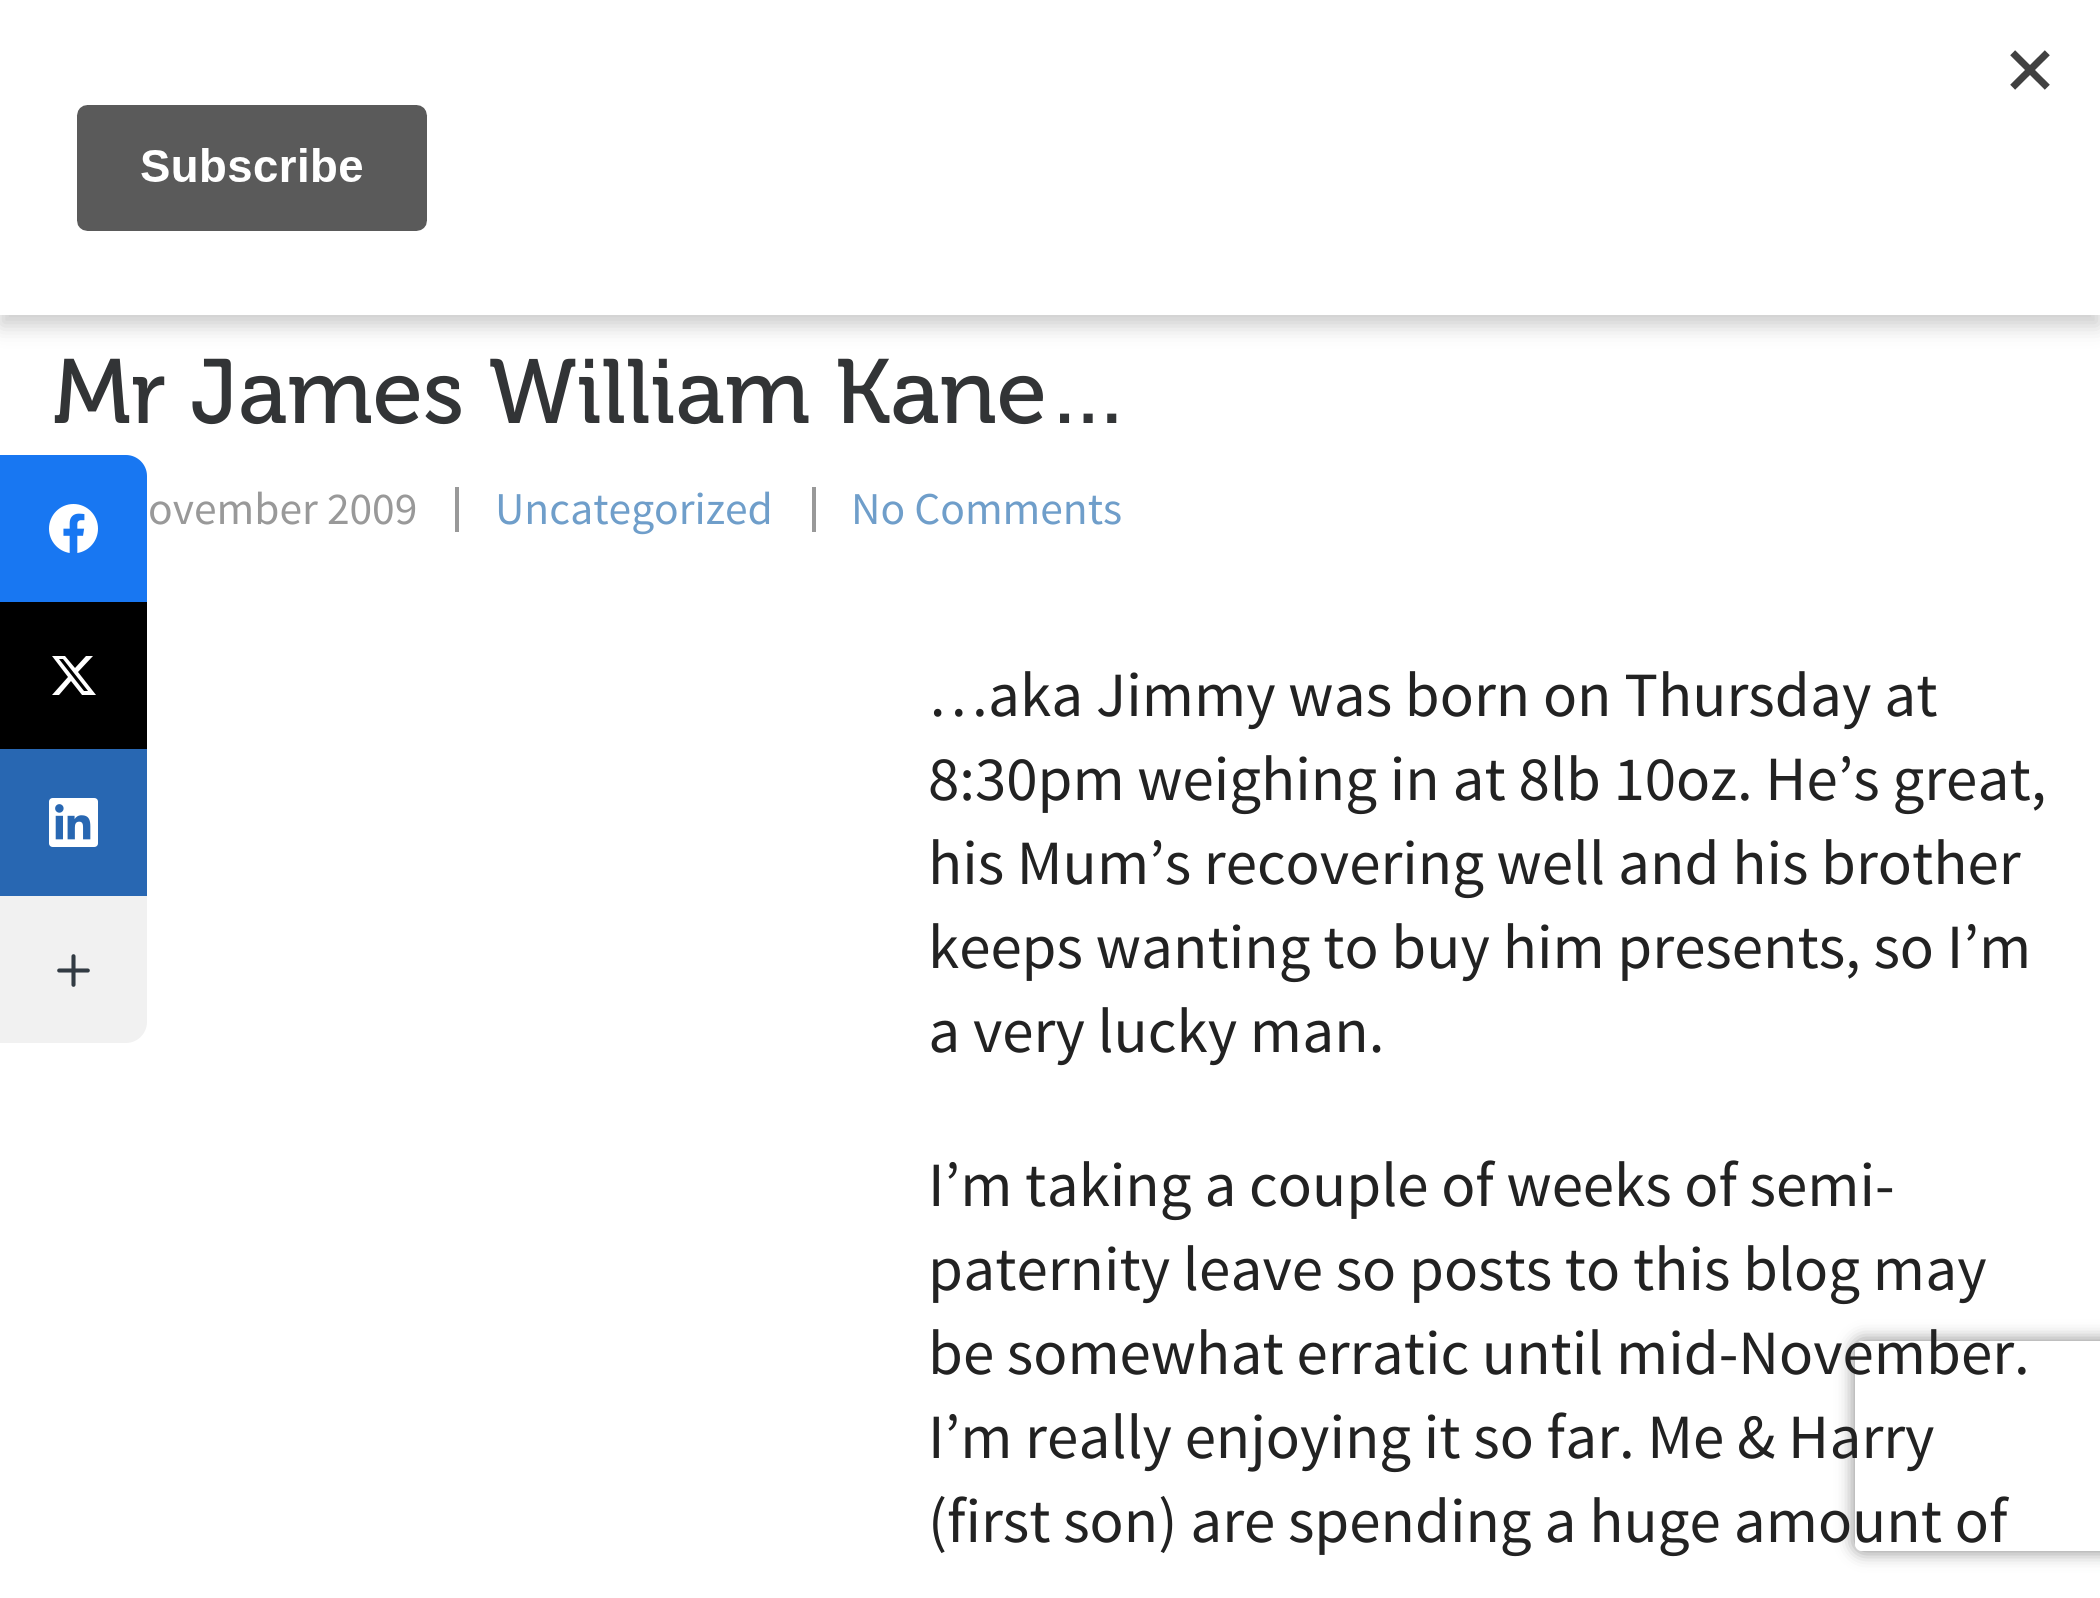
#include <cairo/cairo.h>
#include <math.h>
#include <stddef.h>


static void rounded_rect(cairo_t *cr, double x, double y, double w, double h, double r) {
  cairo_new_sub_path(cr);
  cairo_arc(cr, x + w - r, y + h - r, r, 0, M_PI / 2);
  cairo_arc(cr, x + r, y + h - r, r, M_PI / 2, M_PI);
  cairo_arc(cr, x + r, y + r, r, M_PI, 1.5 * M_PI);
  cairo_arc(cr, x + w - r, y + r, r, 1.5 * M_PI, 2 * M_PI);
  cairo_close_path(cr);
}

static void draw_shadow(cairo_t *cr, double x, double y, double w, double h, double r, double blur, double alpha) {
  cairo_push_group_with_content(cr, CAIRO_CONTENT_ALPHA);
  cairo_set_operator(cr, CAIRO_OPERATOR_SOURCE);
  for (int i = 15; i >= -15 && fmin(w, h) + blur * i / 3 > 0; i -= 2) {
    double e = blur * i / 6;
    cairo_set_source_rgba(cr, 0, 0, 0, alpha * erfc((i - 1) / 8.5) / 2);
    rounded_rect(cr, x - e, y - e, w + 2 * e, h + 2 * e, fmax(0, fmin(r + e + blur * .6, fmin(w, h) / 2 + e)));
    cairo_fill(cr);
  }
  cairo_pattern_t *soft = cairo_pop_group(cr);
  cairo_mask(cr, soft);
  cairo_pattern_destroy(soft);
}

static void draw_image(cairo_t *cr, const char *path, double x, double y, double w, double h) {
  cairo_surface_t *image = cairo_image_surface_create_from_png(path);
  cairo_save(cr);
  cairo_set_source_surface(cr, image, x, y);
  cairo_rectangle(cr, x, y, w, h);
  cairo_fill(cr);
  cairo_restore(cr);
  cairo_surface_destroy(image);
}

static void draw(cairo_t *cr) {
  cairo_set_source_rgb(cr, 1, 1, 1);
  cairo_paint(cr);
  cairo_set_source_rgb(cr, 0, 0, 0);
  draw_shadow(cr, 0, 11, 2100, 315, 0, 10.5, 0.2);
  cairo_set_source_rgb(cr, 1, 1, 1);
  cairo_rectangle(cr, 0, 0, 2100, 315);
  cairo_fill(cr);
  draw_image(cr, "images/1.png", 76, 50, 1974, 181);
  cairo_set_source_rgb(cr, 153 / 255.0, 153 / 255.0, 153 / 255.0);
  cairo_rectangle(cr, 455, 487, 4, 45);
  cairo_fill(cr);
  cairo_rectangle(cr, 812, 487, 4, 45);
  cairo_fill(cr);
  cairo_set_source_rgb(cr, 24 / 255.0, 119 / 255.0, 242 / 255.0);
  cairo_new_path(cr);
  cairo_move_to(cr, 0, 455);
  cairo_line_to(cr, 126, 455);
  cairo_curve_to(cr, 137.5, 455, 147, 464.5, 147, 476);
  cairo_line_to(cr, 147, 602);
  cairo_line_to(cr, 0, 602);
  cairo_close_path(cr);
  cairo_fill(cr);
  draw_image(cr, "images/2.png", 49, 504, 49, 49);
  cairo_set_source_rgb(cr, 0, 0, 0);
  cairo_rectangle(cr, 0, 602, 147, 147);
  cairo_fill(cr);
  cairo_set_source_rgb(cr, 1, 1, 1);
  cairo_new_path(cr);
  cairo_move_to(cr, 86, 656);
  cairo_line_to(cr, 93, 656);
  cairo_line_to(cr, 78, 672);
  cairo_line_to(cr, 96, 695);
  cairo_line_to(cr, 82, 695);
  cairo_line_to(cr, 71, 681);
  cairo_line_to(cr, 59, 695);
  cairo_line_to(cr, 52, 695);
  cairo_line_to(cr, 68, 677);
  cairo_line_to(cr, 52, 656);
  cairo_line_to(cr, 65, 656);
  cairo_line_to(cr, 75, 668);
  cairo_close_path(cr);
  cairo_move_to(cr, 84, 691);
  cairo_line_to(cr, 88, 691);
  cairo_line_to(cr, 63, 659);
  cairo_line_to(cr, 59, 659);
  cairo_close_path(cr);
  cairo_fill(cr);
  cairo_set_source_rgb(cr, 40 / 255.0, 103 / 255.0, 178 / 255.0);
  cairo_rectangle(cr, 0, 749, 147, 147);
  cairo_fill(cr);
  draw_image(cr, "images/3.png", 49, 798, 49, 49);
  cairo_set_source_rgb(cr, 241 / 255.0, 241 / 255.0, 241 / 255.0);
  cairo_new_path(cr);
  cairo_move_to(cr, 0, 896);
  cairo_line_to(cr, 147, 896);
  cairo_line_to(cr, 147, 1022);
  cairo_curve_to(cr, 147, 1033.5, 137.5, 1043, 126, 1043);
  cairo_line_to(cr, 0, 1043);
  cairo_close_path(cr);
  cairo_fill(cr);
  draw_image(cr, "images/4.png", 57, 954, 33, 33);
  cairo_save(cr);
  cairo_set_fill_rule(cr, CAIRO_FILL_RULE_EVEN_ODD);
  cairo_new_path(cr);
  cairo_move_to(cr, 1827, 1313);
  cairo_line_to(cr, 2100, 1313);
  cairo_line_to(cr, 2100, 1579);
  cairo_line_to(cr, 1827, 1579);
  cairo_close_path(cr);
  cairo_move_to(cr, 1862, 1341);
  cairo_line_to(cr, 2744, 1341);
  cairo_curve_to(cr, 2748, 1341, 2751, 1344, 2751, 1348);
  cairo_line_to(cr, 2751, 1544);
  cairo_curve_to(cr, 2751, 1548, 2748, 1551, 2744, 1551);
  cairo_line_to(cr, 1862, 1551);
  cairo_curve_to(cr, 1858, 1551, 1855, 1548, 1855, 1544);
  cairo_line_to(cr, 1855, 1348);
  cairo_curve_to(cr, 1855, 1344, 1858, 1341, 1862, 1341);
  cairo_close_path(cr);
  cairo_clip(cr);
  cairo_set_source_rgb(cr, 128 / 255.0, 128 / 255.0, 128 / 255.0);
  draw_shadow(cr, 1855, 1341, 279, 210, 7, 9, 1);
  cairo_restore(cr);
  cairo_select_font_face(cr, "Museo", CAIRO_FONT_SLANT_NORMAL, CAIRO_FONT_WEIGHT_NORMAL);
  cairo_set_font_size(cr, 91);
  cairo_set_source_rgb(cr, 50 / 255.0, 52 / 255.0, 54 / 255.0);
  cairo_move_to(cr, 53, 423);
  cairo_show_text(cr, "Mr James William Kane…");
  cairo_select_font_face(cr, "Source Sans Pro", CAIRO_FONT_SLANT_NORMAL, CAIRO_FONT_WEIGHT_NORMAL);
  cairo_set_font_size(cr, 45.5);
  cairo_set_source_rgb(cr, 153 / 255.0, 153 / 255.0, 153 / 255.0);
  cairo_move_to(cr, 148, 524);
  cairo_show_text(cr, "ovember 2009");
  cairo_set_source_rgb(cr, 111 / 255.0, 158 / 255.0, 202 / 255.0);
  cairo_move_to(cr, 495, 524);
  cairo_show_text(cr, "Uncategorized");
  cairo_move_to(cr, 851, 524);
  cairo_show_text(cr, "No Comments");
  cairo_set_font_size(cr, 63);
  cairo_set_source_rgb(cr, 34 / 255.0, 34 / 255.0, 34 / 255.0);
  cairo_move_to(cr, 928, 716);
  cairo_show_text(cr, "…aka Jimmy was born on Thursday at");
  cairo_move_to(cr, 928, 800);
  cairo_show_text(cr, "8:30pm weighing in at 8lb 10oz. He’s great,");
  cairo_move_to(cr, 928, 884);
  cairo_show_text(cr, "his Mum’s recovering well and his brother");
  cairo_move_to(cr, 928, 968);
  cairo_show_text(cr, "keeps wanting to buy him presents, so I’m");
  cairo_move_to(cr, 928, 1052);
  cairo_show_text(cr, "a very lucky man.");
  cairo_move_to(cr, 928, 1206);
  cairo_show_text(cr, "I’m taking a couple of weeks of semi-");
  cairo_move_to(cr, 928, 1290);
  cairo_show_text(cr, "paternity leave so posts to this blog may");
  cairo_move_to(cr, 928, 1374);
  cairo_show_text(cr, "be somewhat erratic until mid-November.");
  cairo_move_to(cr, 928, 1458);
  cairo_show_text(cr, "I’m really enjoying it so far. Me & Harry");
  cairo_move_to(cr, 928, 1542);
  cairo_show_text(cr, "(first son) are spending a huge amount of");
}

int main(void) {
  cairo_surface_t *surface = cairo_image_surface_create(CAIRO_FORMAT_RGB24, 2100, 1598);
  cairo_t *cr = cairo_create(surface);
  cairo_font_options_t *options = cairo_font_options_create();
  cairo_font_options_set_hint_metrics(options, CAIRO_HINT_METRICS_OFF);
  cairo_font_options_set_hint_style(options, CAIRO_HINT_STYLE_NONE);
  cairo_set_font_options(cr, options);
  cairo_set_miter_limit(cr, 4);
  draw(cr);
  cairo_surface_write_to_png(surface, "out.png");
  cairo_font_options_destroy(options);
  cairo_destroy(cr);
  cairo_surface_destroy(surface);
  return 0;
}
